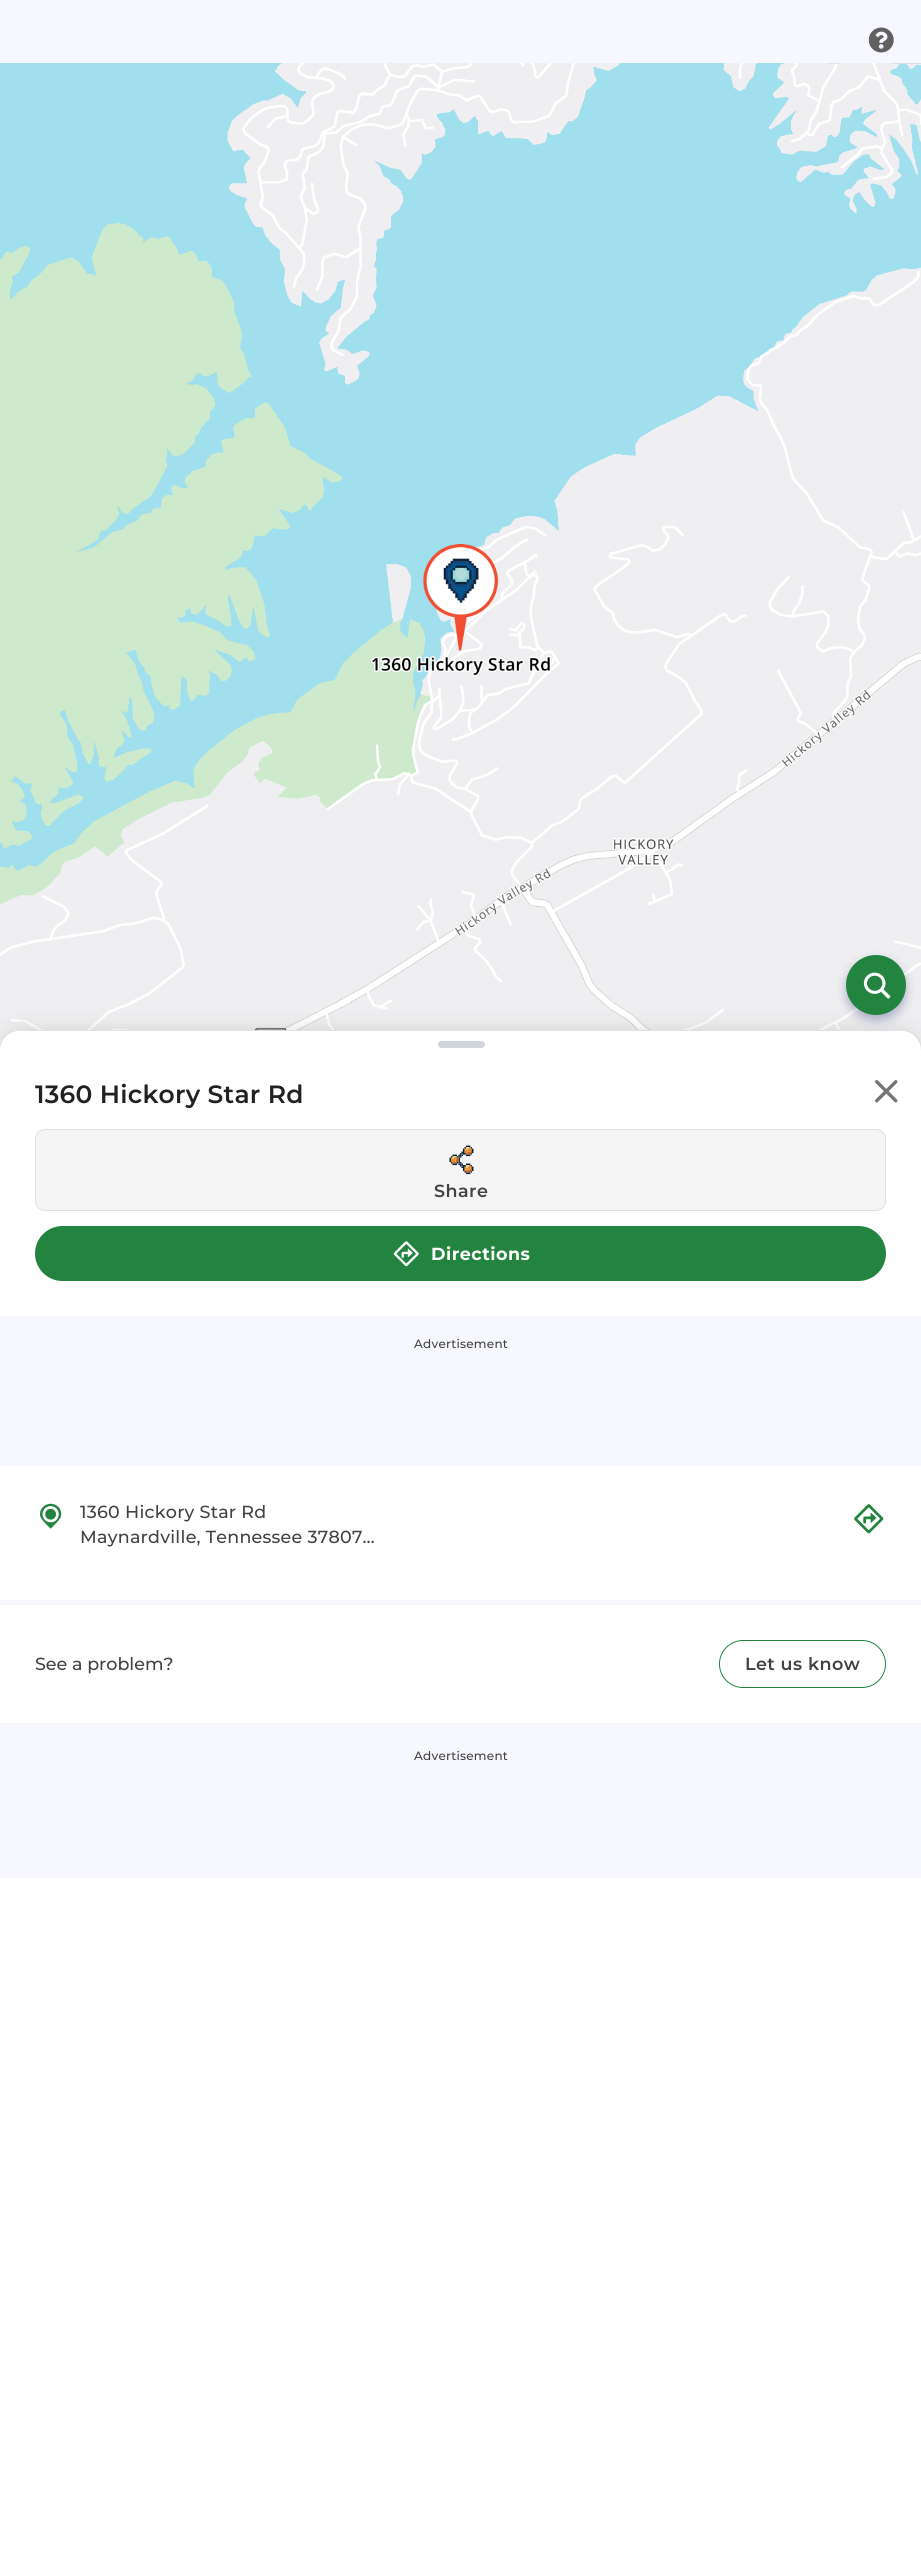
#include <cairo/cairo.h>
#include <math.h>
#include <stddef.h>


static void draw_spaced(cairo_t *cr, double x, double y, const char *s, double letter, double word) {
  cairo_move_to(cr, x, y);
  while (*s) {
    char ch[5] = {0};
    int n = 0;
    do ch[n++] = *s++; while ((*s & 0xC0) == 0x80);
    cairo_show_text(cr, ch);
    cairo_rel_move_to(cr, letter + word * (*ch == ' '), 0);
  }
}

static void rounded_rect(cairo_t *cr, double x, double y, double w, double h, double r) {
  cairo_new_sub_path(cr);
  cairo_arc(cr, x + w - r, y + h - r, r, 0, M_PI / 2);
  cairo_arc(cr, x + r, y + h - r, r, M_PI / 2, M_PI);
  cairo_arc(cr, x + r, y + r, r, M_PI, 1.5 * M_PI);
  cairo_arc(cr, x + w - r, y + r, r, 1.5 * M_PI, 2 * M_PI);
  cairo_close_path(cr);
}

static void draw_shadow(cairo_t *cr, double x, double y, double w, double h, double r, double blur, double alpha) {
  cairo_push_group_with_content(cr, CAIRO_CONTENT_ALPHA);
  cairo_set_operator(cr, CAIRO_OPERATOR_SOURCE);
  for (int i = 15; i >= -15 && fmin(w, h) + blur * i / 3 > 0; i -= 2) {
    double e = blur * i / 6;
    cairo_set_source_rgba(cr, 0, 0, 0, alpha * erfc((i - 1) / 8.5) / 2);
    rounded_rect(cr, x - e, y - e, w + 2 * e, h + 2 * e, fmax(0, fmin(r + e + blur * .6, fmin(w, h) / 2 + e)));
    cairo_fill(cr);
  }
  cairo_pattern_t *soft = cairo_pop_group(cr);
  cairo_mask(cr, soft);
  cairo_pattern_destroy(soft);
}

static void draw_image(cairo_t *cr, const char *path, double x, double y, double w, double h) {
  cairo_surface_t *image = cairo_image_surface_create_from_png(path);
  cairo_save(cr);
  cairo_set_source_surface(cr, image, x, y);
  cairo_rectangle(cr, x, y, w, h);
  cairo_fill(cr);
  cairo_restore(cr);
  cairo_surface_destroy(image);
}

static void draw(cairo_t *cr) {
  cairo_set_source_rgb(cr, 1, 1, 1);
  cairo_paint(cr);
  draw_image(cr, "images/2.png", 0, 63, 921, 987);
  rounded_rect(cr, 808.5, 11.5, 51, 52, 25.5);
  cairo_set_source_rgb(cr, 224 / 255.0, 224 / 255.0, 224 / 255.0);
  cairo_set_line_width(cr, 1);
  cairo_stroke(cr);
  cairo_new_path(cr);
  cairo_move_to(cr, 896.5, 11.5);
  cairo_line_to(cr, 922.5, 11.5);
  cairo_line_to(cr, 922.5, 63.5);
  cairo_line_to(cr, 896.5, 63.5);
  cairo_curve_to(cr, 882, 63.5, 870.5, 52, 870.5, 37.5);
  cairo_curve_to(cr, 870.5, 23, 882, 11.5, 896.5, 11.5);
  cairo_close_path(cr);
  cairo_stroke(cr);
  cairo_set_source_rgb(cr, 247 / 255.0, 247 / 255.0, 1);
  cairo_rectangle(cr, 0, 0, 921, 63);
  cairo_fill(cr);
  draw_image(cr, "images/1.png", 868, 27, 26, 26);
  cairo_set_source_rgb(cr, 51 / 255.0, 51 / 255.0, 51 / 255.0);
  draw_shadow(cr, 0, 1025, 921, 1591, 20, 7.5, 0.1);
  cairo_set_source_rgb(cr, 1, 1, 1);
  cairo_new_path(cr);
  cairo_move_to(cr, 20, 1030);
  cairo_line_to(cr, 901, 1030);
  cairo_curve_to(cr, 912, 1030, 921, 1039, 921, 1050);
  cairo_line_to(cr, 921, 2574);
  cairo_line_to(cr, 0, 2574);
  cairo_line_to(cr, 0, 1050);
  cairo_curve_to(cr, 0, 1039, 9, 1030, 20, 1030);
  cairo_close_path(cr);
  cairo_fill(cr);
  cairo_set_source_rgb(cr, 13 / 255.0, 22 / 255.0, 96 / 255.0);
  draw_shadow(cr, 846, 960, 60, 60, 30, 5, 0.3);
  cairo_set_source_rgb(cr, 35 / 255.0, 132 / 255.0, 64 / 255.0);
  cairo_arc(cr, 876, 985, 30, 0, 2 * M_PI);
  cairo_fill(cr);
  draw_image(cr, "images/3.png", 863, 972, 28, 27);
  cairo_set_source_rgb(cr, 224 / 255.0, 224 / 255.0, 224 / 255.0);
  cairo_new_path(cr);
  cairo_move_to(cr, 19, 1030);
  cairo_line_to(cr, 902, 1030);
  cairo_curve_to(cr, 912, 1030, 919, 1036, 921, 1043);
  cairo_line_to(cr, 921, 1050);
  cairo_curve_to(cr, 921, 1040, 913, 1031, 902, 1031);
  cairo_line_to(cr, 19, 1031);
  cairo_curve_to(cr, 8, 1031, 0, 1040, 0, 1050);
  cairo_line_to(cr, 0, 1044);
  cairo_curve_to(cr, 3, 1036, 10, 1030, 19, 1030);
  cairo_close_path(cr);
  cairo_fill(cr);
  cairo_set_source_rgb(cr, 209 / 255.0, 213 / 255.0, 220 / 255.0);
  rounded_rect(cr, 438, 1041, 47, 7, 3.5);
  cairo_fill(cr);
  draw_image(cr, "images/4.png", 875, 1080, 23, 23);
  cairo_set_source_rgb(cr, 245 / 255.0, 245 / 255.0, 245 / 255.0);
  rounded_rect(cr, 35.5, 1129.5, 850, 81, 9.5);
  cairo_fill_preserve(cr);
  cairo_set_source_rgb(cr, 224 / 255.0, 224 / 255.0, 224 / 255.0);
  cairo_stroke(cr);
  draw_image(cr, "images/5.png", 449, 1145, 25, 30);
  cairo_set_source_rgb(cr, 35 / 255.0, 132 / 255.0, 64 / 255.0);
  rounded_rect(cr, 35, 1226, 851, 55, 27.5);
  cairo_fill(cr);
  draw_image(cr, "images/6.png", 393, 1241, 26, 26);
  cairo_set_source_rgb(cr, 247 / 255.0, 247 / 255.0, 1);
  cairo_rectangle(cr, 0, 1316, 921, 150);
  cairo_fill(cr);
  cairo_rectangle(cr, 0, 1600, 921, 5);
  cairo_fill(cr);
  draw_image(cr, "images/7.png", 40, 1503, 22, 26);
  draw_image(cr, "images/8.png", 854, 1504, 30, 30);
  cairo_rectangle(cr, 0, 1723, 921, 155);
  cairo_fill(cr);
  rounded_rect(cr, 719.5, 1640.5, 166, 47, 23.5);
  cairo_set_source_rgb(cr, 35 / 255.0, 132 / 255.0, 64 / 255.0);
  cairo_stroke(cr);
  cairo_select_font_face(cr, "Montserrat SemiBold", CAIRO_FONT_SLANT_NORMAL, CAIRO_FONT_WEIGHT_NORMAL);
  cairo_set_font_size(cr, 25);
  cairo_set_source_rgb(cr, 33 / 255.0, 33 / 255.0, 33 / 255.0);
  draw_spaced(cr, 35, 1103, "1360 Hickory Star Rd", 0.25, 0);
  cairo_set_font_size(cr, 17.5);
  cairo_set_source_rgb(cr, 66 / 255.0, 66 / 255.0, 66 / 255.0);
  draw_spaced(cr, 434, 1197, "Share", 0.5, 0);
  cairo_select_font_face(cr, "Montserrat", CAIRO_FONT_SLANT_NORMAL, CAIRO_FONT_WEIGHT_BOLD);
  cairo_set_source_rgb(cr, 1, 1, 1);
  draw_spaced(cr, 431, 1260, "Directions", 0.5, 0);
  cairo_select_font_face(cr, "Montserrat Medium", CAIRO_FONT_SLANT_NORMAL, CAIRO_FONT_WEIGHT_NORMAL);
  cairo_set_font_size(cr, 12);
  cairo_set_source_rgb(cr, 66 / 255.0, 66 / 255.0, 66 / 255.0);
  draw_spaced(cr, 414, 1348, "Advertisement", 0.25, 0);
  cairo_set_font_size(cr, 17.5);
  draw_spaced(cr, 80, 1518, "1360 Hickory Star Rd", 0.25, 0);
  draw_spaced(cr, 80, 1543, "Maynardville, Tennessee 37807…", 0.25, 0);
  cairo_move_to(cr, 35, 1670);
  cairo_show_text(cr, "See a problem?");
  cairo_select_font_face(cr, "Montserrat SemiBold", CAIRO_FONT_SLANT_NORMAL, CAIRO_FONT_WEIGHT_NORMAL);
  draw_spaced(cr, 745, 1670, "Let us know", 0.5, 0);
  cairo_select_font_face(cr, "Montserrat Medium", CAIRO_FONT_SLANT_NORMAL, CAIRO_FONT_WEIGHT_NORMAL);
  cairo_set_font_size(cr, 12);
  draw_spaced(cr, 414, 1760, "Advertisement", 0.25, 0);
}

int main(void) {
  cairo_surface_t *surface = cairo_image_surface_create(CAIRO_FORMAT_RGB24, 921, 2573);
  cairo_t *cr = cairo_create(surface);
  cairo_font_options_t *options = cairo_font_options_create();
  cairo_font_options_set_hint_metrics(options, CAIRO_HINT_METRICS_OFF);
  cairo_font_options_set_hint_style(options, CAIRO_HINT_STYLE_NONE);
  cairo_set_font_options(cr, options);
  cairo_set_miter_limit(cr, 4);
  draw(cr);
  cairo_surface_write_to_png(surface, "out.png");
  cairo_font_options_destroy(options);
  cairo_destroy(cr);
  cairo_surface_destroy(surface);
  return 0;
}
